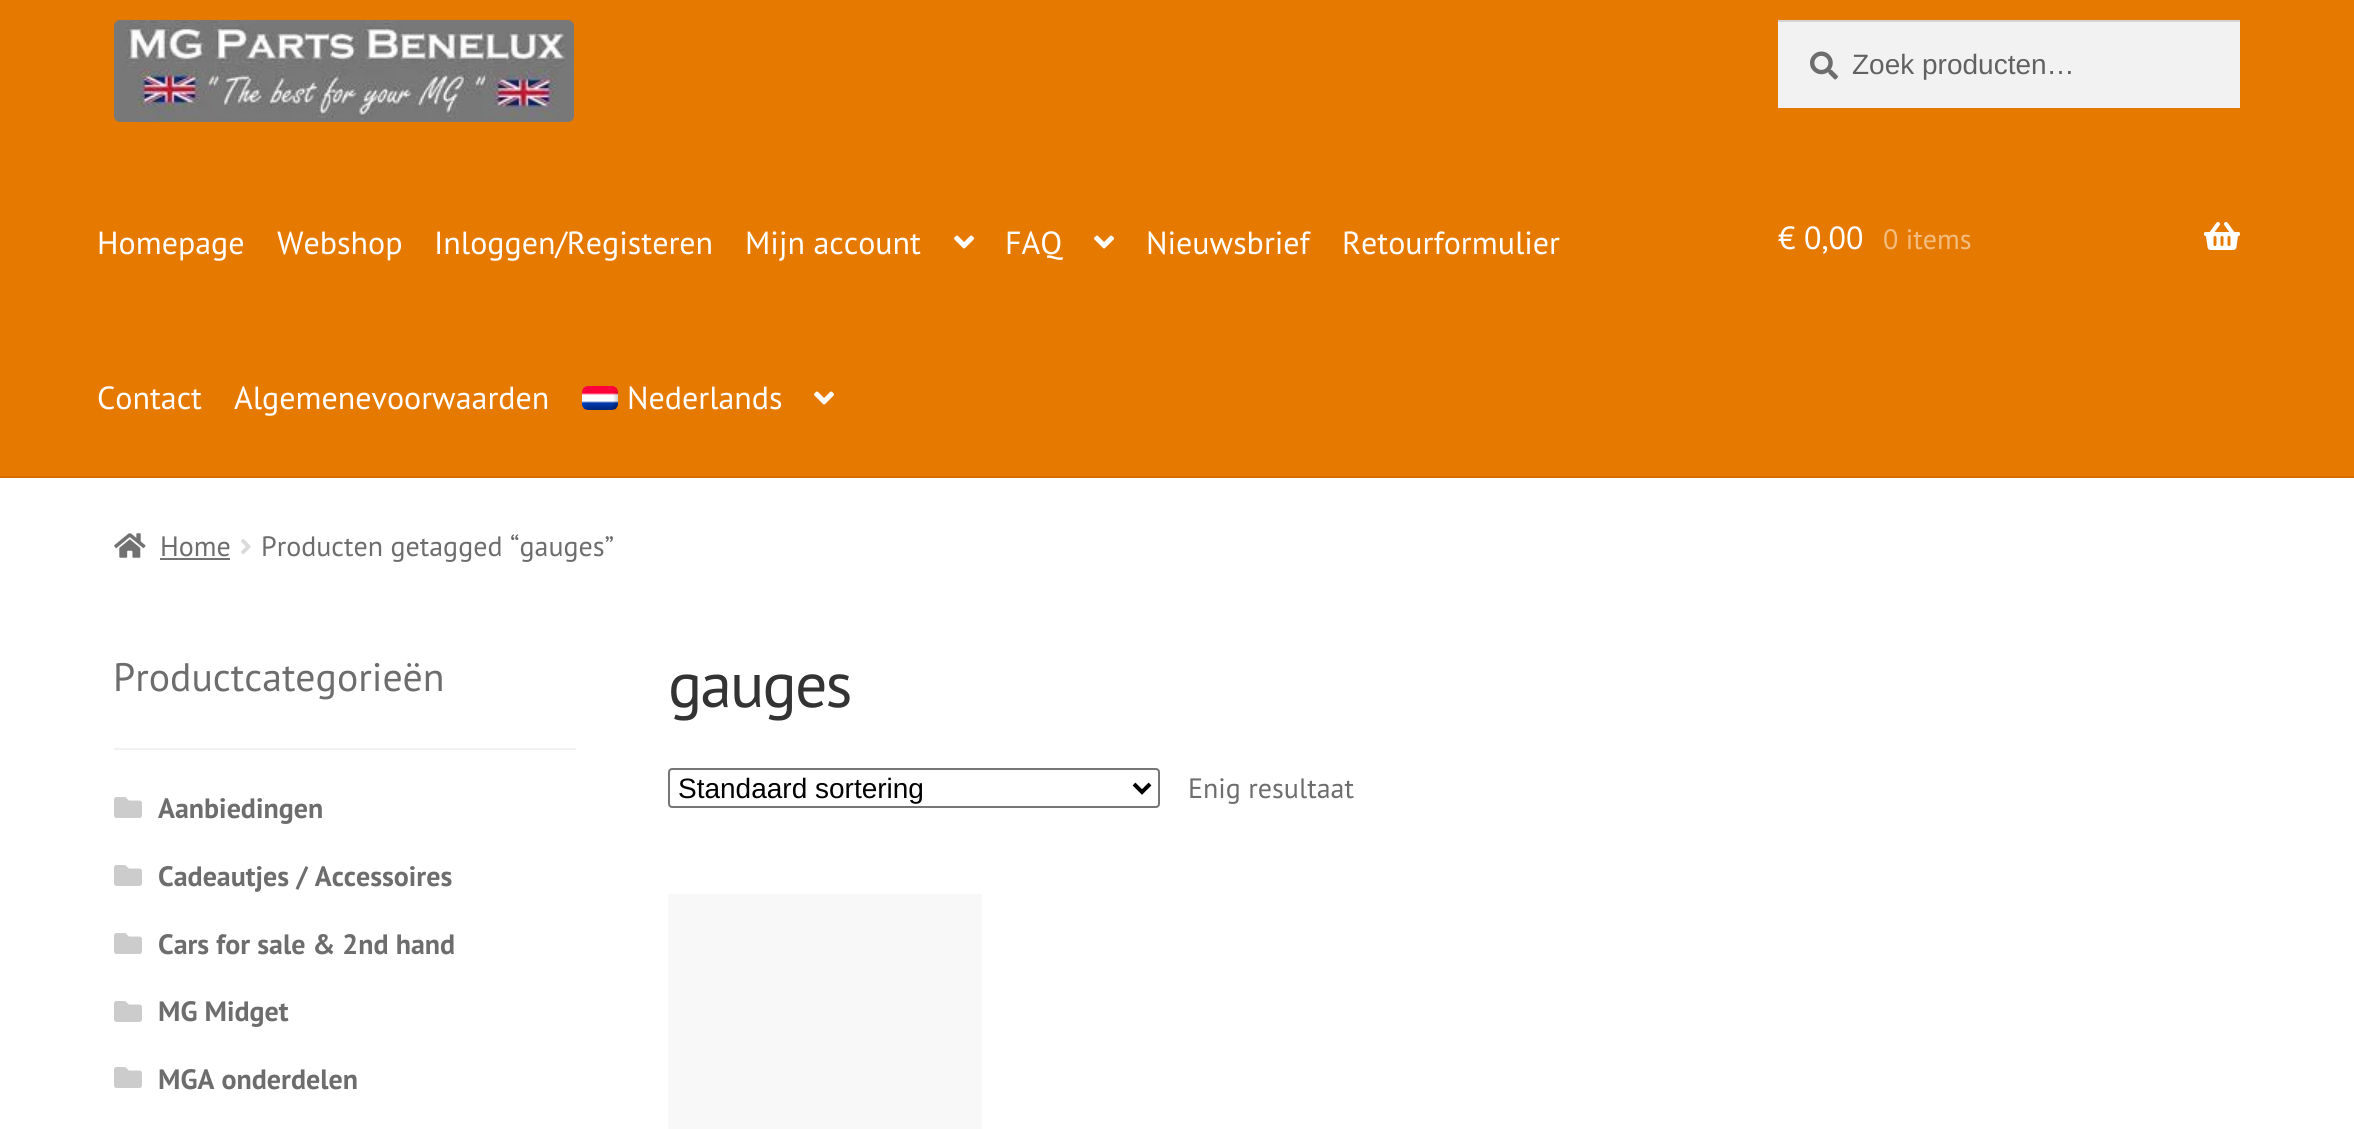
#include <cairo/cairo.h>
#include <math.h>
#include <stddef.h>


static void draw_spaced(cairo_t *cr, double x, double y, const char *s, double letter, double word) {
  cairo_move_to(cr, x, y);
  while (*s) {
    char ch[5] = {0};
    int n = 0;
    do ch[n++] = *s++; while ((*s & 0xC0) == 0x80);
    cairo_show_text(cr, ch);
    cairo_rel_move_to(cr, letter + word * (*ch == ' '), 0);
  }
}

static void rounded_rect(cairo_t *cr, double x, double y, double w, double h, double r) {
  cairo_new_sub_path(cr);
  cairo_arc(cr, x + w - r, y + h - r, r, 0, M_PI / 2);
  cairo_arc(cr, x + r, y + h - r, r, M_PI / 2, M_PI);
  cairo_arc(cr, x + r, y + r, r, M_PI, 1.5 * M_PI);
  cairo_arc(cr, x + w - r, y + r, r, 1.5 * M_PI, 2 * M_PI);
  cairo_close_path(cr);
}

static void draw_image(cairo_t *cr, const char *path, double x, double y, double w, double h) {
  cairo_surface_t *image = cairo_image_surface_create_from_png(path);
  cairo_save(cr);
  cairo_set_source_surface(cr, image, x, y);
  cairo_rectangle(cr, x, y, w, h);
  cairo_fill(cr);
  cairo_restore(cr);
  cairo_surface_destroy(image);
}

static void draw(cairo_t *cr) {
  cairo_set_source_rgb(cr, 1, 1, 1);
  cairo_paint(cr);
  cairo_set_source_rgb(cr, 230 / 255.0, 122 / 255.0, 0);
  cairo_rectangle(cr, 0, 0, 2354, 476);
  cairo_fill(cr);
  cairo_set_source_rgb(cr, 215 / 255.0, 107 / 255.0, 0);
  cairo_rectangle(cr, 0, 476, 2354, 2);
  cairo_fill(cr);
  draw_image(cr, "images/1.png", 114, 20, 460, 102);
  cairo_set_source_rgb(cr, 242 / 255.0, 242 / 255.0, 242 / 255.0);
  cairo_rectangle(cr, 1778, 22, 462, 86);
  cairo_fill(cr);
  draw_image(cr, "images/2.png", 1810, 51, 28, 29);
  cairo_set_source_rgb(cr, 212 / 255.0, 212 / 255.0, 212 / 255.0);
  cairo_rectangle(cr, 1778, 20, 462, 2);
  cairo_fill(cr);
  draw_image(cr, "images/3.png", 954, 235, 20, 14);
  draw_image(cr, "images/3.png", 1094, 235, 20, 14);
  draw_image(cr, "images/4.png", 582, 386, 36, 24);
  draw_image(cr, "images/3.png", 814, 391, 20, 14);
  draw_image(cr, "images/5.png", 2204, 222, 36, 28);
  draw_image(cr, "images/6.png", 114, 533, 32, 25);
  cairo_set_source_rgb(cr, 114 / 255.0, 114 / 255.0, 114 / 255.0);
  cairo_rectangle(cr, 160, 558, 70, 2);
  cairo_fill(cr);
  draw_image(cr, "images/7.png", 241, 539, 10, 16);
  cairo_set_source_rgb(cr, 242 / 255.0, 242 / 255.0, 242 / 255.0);
  cairo_rectangle(cr, 114, 748, 462, 2);
  cairo_fill(cr);
  draw_image(cr, "images/8.png", 114, 797, 28, 21);
  draw_image(cr, "images/8.png", 114, 865, 28, 21);
  draw_image(cr, "images/8.png", 114, 933, 28, 21);
  draw_image(cr, "images/8.png", 114, 1001, 28, 21);
  draw_image(cr, "images/8.png", 114, 1067, 28, 21);
  rounded_rect(cr, 669, 769, 490, 38, 3);
  cairo_set_source_rgb(cr, 118 / 255.0, 118 / 255.0, 118 / 255.0);
  cairo_stroke(cr);
  cairo_new_path(cr);
  cairo_move_to(cr, 1134, 784);
  cairo_line_to(cr, 1142, 792);
  cairo_line_to(cr, 1150, 784);
  cairo_set_source_rgb(cr, 0, 0, 0);
  cairo_set_line_width(cr, 4);
  cairo_stroke(cr);
  cairo_set_source_rgb(cr, 248 / 255.0, 248 / 255.0, 248 / 255.0);
  cairo_rectangle(cr, 668, 894, 314, 235);
  cairo_fill(cr);
  cairo_select_font_face(cr, "Liberation Sans", CAIRO_FONT_SLANT_NORMAL, CAIRO_FONT_WEIGHT_NORMAL);
  cairo_set_font_size(cr, 28);
  cairo_set_source_rgb(cr, 97 / 255.0, 97 / 255.0, 97 / 255.0);
  cairo_move_to(cr, 1852, 74);
  cairo_show_text(cr, "Zoek producten…");
  cairo_select_font_face(cr, "PT Sans", CAIRO_FONT_SLANT_NORMAL, CAIRO_FONT_WEIGHT_NORMAL);
  cairo_set_font_size(cr, 32);
  cairo_set_source_rgb(cr, 1, 1, 1);
  cairo_move_to(cr, 97, 254);
  cairo_show_text(cr, "Homepage");
  cairo_move_to(cr, 277, 254);
  cairo_show_text(cr, "Webshop");
  cairo_move_to(cr, 434, 254);
  cairo_show_text(cr, "Inloggen/Registeren");
  cairo_move_to(cr, 745, 254);
  cairo_show_text(cr, "Mijn account");
  cairo_move_to(cr, 1005, 254);
  cairo_show_text(cr, "FAQ");
  cairo_move_to(cr, 1146, 254);
  cairo_show_text(cr, "Nieuwsbrief");
  cairo_move_to(cr, 1342, 254);
  cairo_show_text(cr, "Retourformulier");
  cairo_move_to(cr, 97, 409);
  cairo_show_text(cr, "Contact");
  cairo_move_to(cr, 234, 409);
  cairo_show_text(cr, "Algemenevoorwaarden");
  cairo_move_to(cr, 627, 409);
  cairo_show_text(cr, "Nederlands");
  cairo_move_to(cr, 1778, 249);
  cairo_show_text(cr, "€ 0,00");
  cairo_set_font_size(cr, 28);
  cairo_set_source_rgb(cr, 243 / 255.0, 189 / 255.0, 128 / 255.0);
  cairo_move_to(cr, 1883, 249);
  cairo_show_text(cr, "0 items");
  cairo_set_source_rgb(cr, 109 / 255.0, 109 / 255.0, 109 / 255.0);
  cairo_move_to(cr, 160, 556);
  cairo_show_text(cr, "Home");
  cairo_move_to(cr, 261, 556);
  cairo_show_text(cr, "Producten getagged “gauges”");
  cairo_set_font_size(cr, 39.75);
  cairo_move_to(cr, 113, 691);
  cairo_show_text(cr, "Productcategorieën");
  cairo_select_font_face(cr, "PT Sans", CAIRO_FONT_SLANT_NORMAL, CAIRO_FONT_WEIGHT_BOLD);
  cairo_set_font_size(cr, 28);
  cairo_move_to(cr, 158, 818);
  cairo_show_text(cr, "Aanbiedingen");
  cairo_move_to(cr, 158, 886);
  cairo_show_text(cr, "Cadeautjes / Accessoires");
  cairo_move_to(cr, 158, 954);
  cairo_show_text(cr, "Cars for sale & 2nd hand");
  cairo_move_to(cr, 158, 1021);
  cairo_show_text(cr, "MG Midget");
  cairo_move_to(cr, 158, 1089);
  cairo_show_text(cr, "MGA onderdelen");
  cairo_select_font_face(cr, "PT Sans", CAIRO_FONT_SLANT_NORMAL, CAIRO_FONT_WEIGHT_NORMAL);
  cairo_set_font_size(cr, 64);
  cairo_set_source_rgb(cr, 51 / 255.0, 51 / 255.0, 51 / 255.0);
  draw_spaced(cr, 668, 707, "gauges", -2, 0);
  cairo_select_font_face(cr, "Liberation Sans", CAIRO_FONT_SLANT_NORMAL, CAIRO_FONT_WEIGHT_NORMAL);
  cairo_set_font_size(cr, 28);
  cairo_set_source_rgb(cr, 0, 0, 0);
  cairo_move_to(cr, 678, 798);
  cairo_show_text(cr, "Standaard sortering");
  cairo_select_font_face(cr, "PT Sans", CAIRO_FONT_SLANT_NORMAL, CAIRO_FONT_WEIGHT_NORMAL);
  cairo_set_source_rgb(cr, 109 / 255.0, 109 / 255.0, 109 / 255.0);
  cairo_move_to(cr, 1188, 798);
  cairo_show_text(cr, "Enig resultaat");
}

int main(void) {
  cairo_surface_t *surface = cairo_image_surface_create(CAIRO_FORMAT_RGB24, 2354, 1129);
  cairo_t *cr = cairo_create(surface);
  cairo_font_options_t *options = cairo_font_options_create();
  cairo_font_options_set_hint_metrics(options, CAIRO_HINT_METRICS_OFF);
  cairo_font_options_set_hint_style(options, CAIRO_HINT_STYLE_NONE);
  cairo_set_font_options(cr, options);
  cairo_set_miter_limit(cr, 4);
  draw(cr);
  cairo_surface_write_to_png(surface, "out.png");
  cairo_font_options_destroy(options);
  cairo_destroy(cr);
  cairo_surface_destroy(surface);
  return 0;
}
